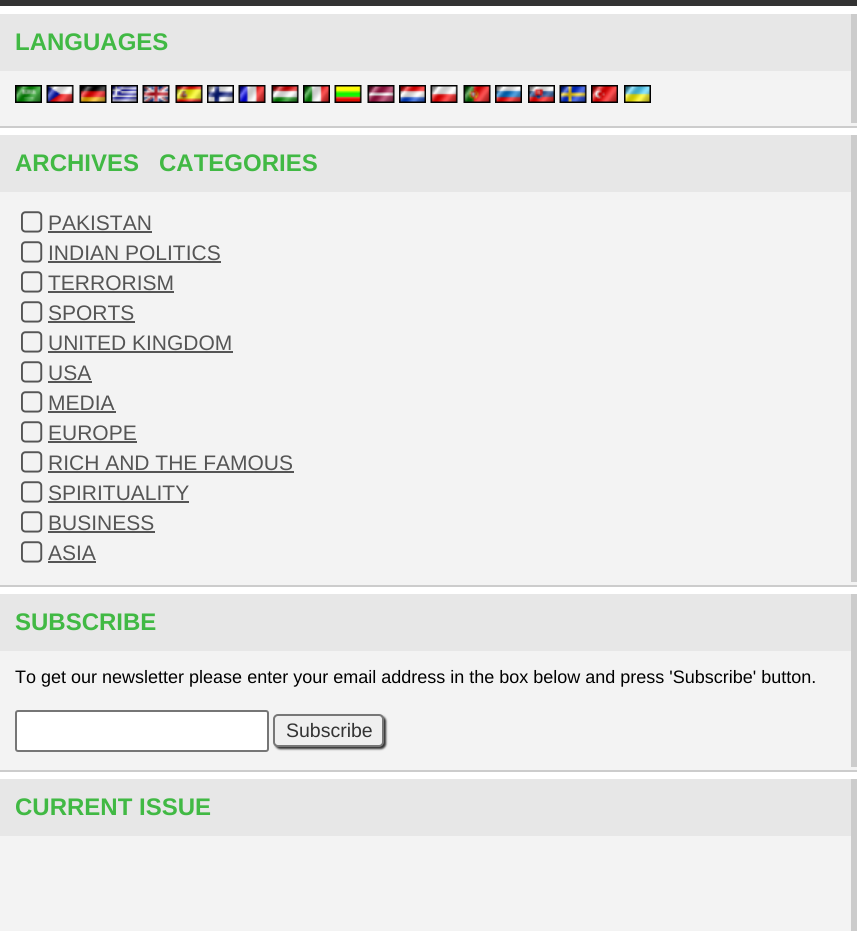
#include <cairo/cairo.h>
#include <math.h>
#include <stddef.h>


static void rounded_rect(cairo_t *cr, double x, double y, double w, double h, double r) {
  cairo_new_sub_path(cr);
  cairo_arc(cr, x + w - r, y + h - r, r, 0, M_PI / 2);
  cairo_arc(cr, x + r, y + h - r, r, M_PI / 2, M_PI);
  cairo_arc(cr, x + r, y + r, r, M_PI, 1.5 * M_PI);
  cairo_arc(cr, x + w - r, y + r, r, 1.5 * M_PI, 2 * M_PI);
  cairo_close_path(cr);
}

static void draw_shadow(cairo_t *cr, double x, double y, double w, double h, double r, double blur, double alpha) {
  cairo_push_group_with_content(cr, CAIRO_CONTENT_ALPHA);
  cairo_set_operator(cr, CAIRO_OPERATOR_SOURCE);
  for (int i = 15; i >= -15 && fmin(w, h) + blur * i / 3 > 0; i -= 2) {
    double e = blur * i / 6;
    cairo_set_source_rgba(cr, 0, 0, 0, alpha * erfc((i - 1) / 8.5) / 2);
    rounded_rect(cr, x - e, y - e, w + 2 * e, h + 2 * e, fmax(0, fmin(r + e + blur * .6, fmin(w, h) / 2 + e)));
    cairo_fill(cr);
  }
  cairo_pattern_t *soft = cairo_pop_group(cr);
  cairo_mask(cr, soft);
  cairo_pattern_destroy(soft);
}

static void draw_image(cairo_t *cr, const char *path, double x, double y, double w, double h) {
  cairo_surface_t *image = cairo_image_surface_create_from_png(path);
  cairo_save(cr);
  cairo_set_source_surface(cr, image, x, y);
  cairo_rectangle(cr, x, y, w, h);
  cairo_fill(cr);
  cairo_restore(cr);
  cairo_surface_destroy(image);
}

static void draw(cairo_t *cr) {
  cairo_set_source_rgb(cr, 1, 1, 1);
  cairo_paint(cr);
  cairo_set_source_rgb(cr, 51 / 255.0, 51 / 255.0, 51 / 255.0);
  cairo_rectangle(cr, 0, 0, 857, 6);
  cairo_fill(cr);
  cairo_set_source_rgb(cr, 231 / 255.0, 231 / 255.0, 231 / 255.0);
  cairo_rectangle(cr, 0, 14, 851, 57);
  cairo_fill(cr);
  cairo_set_source_rgb(cr, 204 / 255.0, 204 / 255.0, 204 / 255.0);
  cairo_rectangle(cr, 851, 14, 6, 109);
  cairo_fill(cr);
  cairo_rectangle(cr, 0, 126, 857, 2);
  cairo_fill(cr);
  cairo_set_source_rgb(cr, 243 / 255.0, 243 / 255.0, 243 / 255.0);
  cairo_rectangle(cr, 0, 123, 857, 3);
  cairo_fill(cr);
  cairo_rectangle(cr, 0, 71, 851, 52);
  cairo_fill(cr);
  draw_image(cr, "images/1.png", 15, 85, 27, 18);
  draw_image(cr, "images/2.png", 46, 85, 28, 18);
  draw_image(cr, "images/3.png", 79, 85, 28, 18);
  draw_image(cr, "images/4.png", 111, 85, 27, 18);
  draw_image(cr, "images/5.png", 142, 85, 28, 18);
  draw_image(cr, "images/6.png", 175, 85, 28, 18);
  draw_image(cr, "images/7.png", 207, 85, 27, 18);
  draw_image(cr, "images/8.png", 238, 85, 28, 18);
  draw_image(cr, "images/9.png", 271, 85, 28, 18);
  draw_image(cr, "images/10.png", 303, 85, 27, 18);
  draw_image(cr, "images/11.png", 334, 85, 28, 18);
  draw_image(cr, "images/12.png", 367, 85, 28, 18);
  draw_image(cr, "images/13.png", 399, 85, 27, 18);
  draw_image(cr, "images/14.png", 430, 85, 28, 18);
  draw_image(cr, "images/15.png", 463, 85, 28, 18);
  draw_image(cr, "images/16.png", 495, 85, 27, 18);
  draw_image(cr, "images/17.png", 528, 85, 27, 18);
  draw_image(cr, "images/18.png", 559, 85, 28, 18);
  draw_image(cr, "images/19.png", 591, 85, 27, 18);
  draw_image(cr, "images/20.png", 624, 85, 27, 18);
  cairo_set_source_rgb(cr, 231 / 255.0, 231 / 255.0, 231 / 255.0);
  cairo_rectangle(cr, 0, 135, 851, 57);
  cairo_fill(cr);
  cairo_set_source_rgb(cr, 204 / 255.0, 204 / 255.0, 204 / 255.0);
  cairo_rectangle(cr, 851, 135, 6, 447);
  cairo_fill(cr);
  cairo_rectangle(cr, 0, 585, 857, 2);
  cairo_fill(cr);
  cairo_set_source_rgb(cr, 243 / 255.0, 243 / 255.0, 243 / 255.0);
  cairo_rectangle(cr, 0, 582, 857, 3);
  cairo_fill(cr);
  cairo_rectangle(cr, 0, 192, 851, 390);
  cairo_fill(cr);
  draw_image(cr, "images/21.png", 21, 211, 22, 22);
  cairo_set_source_rgb(cr, 85 / 255.0, 85 / 255.0, 85 / 255.0);
  cairo_rectangle(cr, 48, 231, 104, 2);
  cairo_fill(cr);
  draw_image(cr, "images/21.png", 21, 241, 22, 22);
  cairo_rectangle(cr, 48, 261, 173, 2);
  cairo_fill(cr);
  draw_image(cr, "images/21.png", 21, 271, 22, 22);
  cairo_rectangle(cr, 48, 291, 126, 2);
  cairo_fill(cr);
  draw_image(cr, "images/21.png", 21, 301, 22, 22);
  cairo_rectangle(cr, 48, 321, 87, 2);
  cairo_fill(cr);
  draw_image(cr, "images/21.png", 21, 331, 22, 22);
  cairo_rectangle(cr, 48, 351, 185, 2);
  cairo_fill(cr);
  draw_image(cr, "images/21.png", 21, 361, 22, 22);
  cairo_rectangle(cr, 48, 381, 44, 2);
  cairo_fill(cr);
  draw_image(cr, "images/21.png", 21, 391, 22, 22);
  cairo_rectangle(cr, 48, 411, 68, 2);
  cairo_fill(cr);
  draw_image(cr, "images/21.png", 21, 421, 22, 22);
  cairo_rectangle(cr, 48, 441, 89, 2);
  cairo_fill(cr);
  draw_image(cr, "images/21.png", 21, 451, 22, 22);
  cairo_rectangle(cr, 48, 471, 246, 2);
  cairo_fill(cr);
  draw_image(cr, "images/21.png", 21, 481, 22, 22);
  cairo_rectangle(cr, 48, 501, 141, 2);
  cairo_fill(cr);
  draw_image(cr, "images/21.png", 21, 511, 22, 22);
  cairo_rectangle(cr, 48, 531, 107, 2);
  cairo_fill(cr);
  draw_image(cr, "images/21.png", 21, 541, 22, 22);
  cairo_rectangle(cr, 48, 561, 48, 2);
  cairo_fill(cr);
  cairo_set_source_rgb(cr, 231 / 255.0, 231 / 255.0, 231 / 255.0);
  cairo_rectangle(cr, 0, 594, 851, 57);
  cairo_fill(cr);
  cairo_set_source_rgb(cr, 204 / 255.0, 204 / 255.0, 204 / 255.0);
  cairo_rectangle(cr, 851, 594, 6, 173);
  cairo_fill(cr);
  cairo_rectangle(cr, 0, 770, 857, 2);
  cairo_fill(cr);
  cairo_set_source_rgb(cr, 243 / 255.0, 243 / 255.0, 243 / 255.0);
  cairo_rectangle(cr, 0, 767, 857, 3);
  cairo_fill(cr);
  cairo_rectangle(cr, 0, 651, 851, 116);
  cairo_fill(cr);
  cairo_set_source_rgb(cr, 1, 1, 1);
  rounded_rect(cr, 16, 711, 252, 40, 2);
  cairo_fill_preserve(cr);
  cairo_set_source_rgb(cr, 118 / 255.0, 118 / 255.0, 118 / 255.0);
  cairo_stroke(cr);
  cairo_set_source_rgb(cr, 51 / 255.0, 51 / 255.0, 51 / 255.0);
  draw_shadow(cr, 275, 716, 111, 33, 5, 1, 1);
  cairo_set_source_rgb(cr, 239 / 255.0, 239 / 255.0, 239 / 255.0);
  rounded_rect(cr, 274, 715, 109, 31, 4);
  cairo_fill_preserve(cr);
  cairo_set_source_rgb(cr, 119 / 255.0, 119 / 255.0, 119 / 255.0);
  cairo_stroke(cr);
  cairo_set_source_rgb(cr, 231 / 255.0, 231 / 255.0, 231 / 255.0);
  cairo_rectangle(cr, 0, 779, 851, 57);
  cairo_fill(cr);
  cairo_set_source_rgb(cr, 204 / 255.0, 204 / 255.0, 204 / 255.0);
  cairo_rectangle(cr, 851, 779, 6, 152);
  cairo_fill(cr);
  cairo_set_source_rgb(cr, 243 / 255.0, 243 / 255.0, 243 / 255.0);
  cairo_rectangle(cr, 0, 836, 851, 95);
  cairo_fill(cr);
  cairo_select_font_face(cr, "Liberation Sans", CAIRO_FONT_SLANT_NORMAL, CAIRO_FONT_WEIGHT_BOLD);
  cairo_set_font_size(cr, 24);
  cairo_set_source_rgb(cr, 65 / 255.0, 185 / 255.0, 68 / 255.0);
  cairo_move_to(cr, 15, 50);
  cairo_show_text(cr, "LANGUAGES");
  cairo_move_to(cr, 15, 171);
  cairo_show_text(cr, "ARCHIVES   CATEGORIES");
  cairo_select_font_face(cr, "Liberation Sans", CAIRO_FONT_SLANT_NORMAL, CAIRO_FONT_WEIGHT_NORMAL);
  cairo_set_font_size(cr, 21);
  cairo_set_source_rgb(cr, 85 / 255.0, 85 / 255.0, 85 / 255.0);
  cairo_move_to(cr, 48, 230);
  cairo_show_text(cr, "PAKISTAN");
  cairo_move_to(cr, 48, 260);
  cairo_show_text(cr, "INDIAN POLITICS");
  cairo_move_to(cr, 48, 290);
  cairo_show_text(cr, "TERRORISM");
  cairo_move_to(cr, 48, 320);
  cairo_show_text(cr, "SPORTS");
  cairo_move_to(cr, 48, 350);
  cairo_show_text(cr, "UNITED KINGDOM");
  cairo_move_to(cr, 48, 380);
  cairo_show_text(cr, "USA");
  cairo_move_to(cr, 48, 410);
  cairo_show_text(cr, "MEDIA");
  cairo_move_to(cr, 48, 440);
  cairo_show_text(cr, "EUROPE");
  cairo_move_to(cr, 48, 470);
  cairo_show_text(cr, "RICH AND THE FAMOUS");
  cairo_move_to(cr, 48, 500);
  cairo_show_text(cr, "SPIRITUALITY");
  cairo_move_to(cr, 48, 530);
  cairo_show_text(cr, "BUSINESS");
  cairo_move_to(cr, 48, 560);
  cairo_show_text(cr, "ASIA");
  cairo_select_font_face(cr, "Liberation Sans", CAIRO_FONT_SLANT_NORMAL, CAIRO_FONT_WEIGHT_BOLD);
  cairo_set_font_size(cr, 24);
  cairo_set_source_rgb(cr, 65 / 255.0, 185 / 255.0, 68 / 255.0);
  cairo_move_to(cr, 15, 630);
  cairo_show_text(cr, "SUBSCRIBE");
  cairo_select_font_face(cr, "Liberation Sans", CAIRO_FONT_SLANT_NORMAL, CAIRO_FONT_WEIGHT_NORMAL);
  cairo_set_font_size(cr, 18);
  cairo_set_source_rgb(cr, 0, 0, 0);
  cairo_move_to(cr, 15, 683);
  cairo_show_text(cr, "To get our newsletter please enter your email address in the box below and press 'Subscribe' button.");
  cairo_set_font_size(cr, 19.5);
  cairo_set_source_rgb(cr, 51 / 255.0, 51 / 255.0, 51 / 255.0);
  cairo_move_to(cr, 286, 737);
  cairo_show_text(cr, "Subscribe");
  cairo_select_font_face(cr, "Liberation Sans", CAIRO_FONT_SLANT_NORMAL, CAIRO_FONT_WEIGHT_BOLD);
  cairo_set_font_size(cr, 24);
  cairo_set_source_rgb(cr, 65 / 255.0, 185 / 255.0, 68 / 255.0);
  cairo_move_to(cr, 15, 815);
  cairo_show_text(cr, "CURRENT ISSUE");
}

int main(void) {
  cairo_surface_t *surface = cairo_image_surface_create(CAIRO_FORMAT_RGB24, 857, 931);
  cairo_t *cr = cairo_create(surface);
  cairo_font_options_t *options = cairo_font_options_create();
  cairo_font_options_set_hint_metrics(options, CAIRO_HINT_METRICS_OFF);
  cairo_font_options_set_hint_style(options, CAIRO_HINT_STYLE_NONE);
  cairo_set_font_options(cr, options);
  cairo_set_miter_limit(cr, 4);
  draw(cr);
  cairo_surface_write_to_png(surface, "out.png");
  cairo_font_options_destroy(options);
  cairo_destroy(cr);
  cairo_surface_destroy(surface);
  return 0;
}
